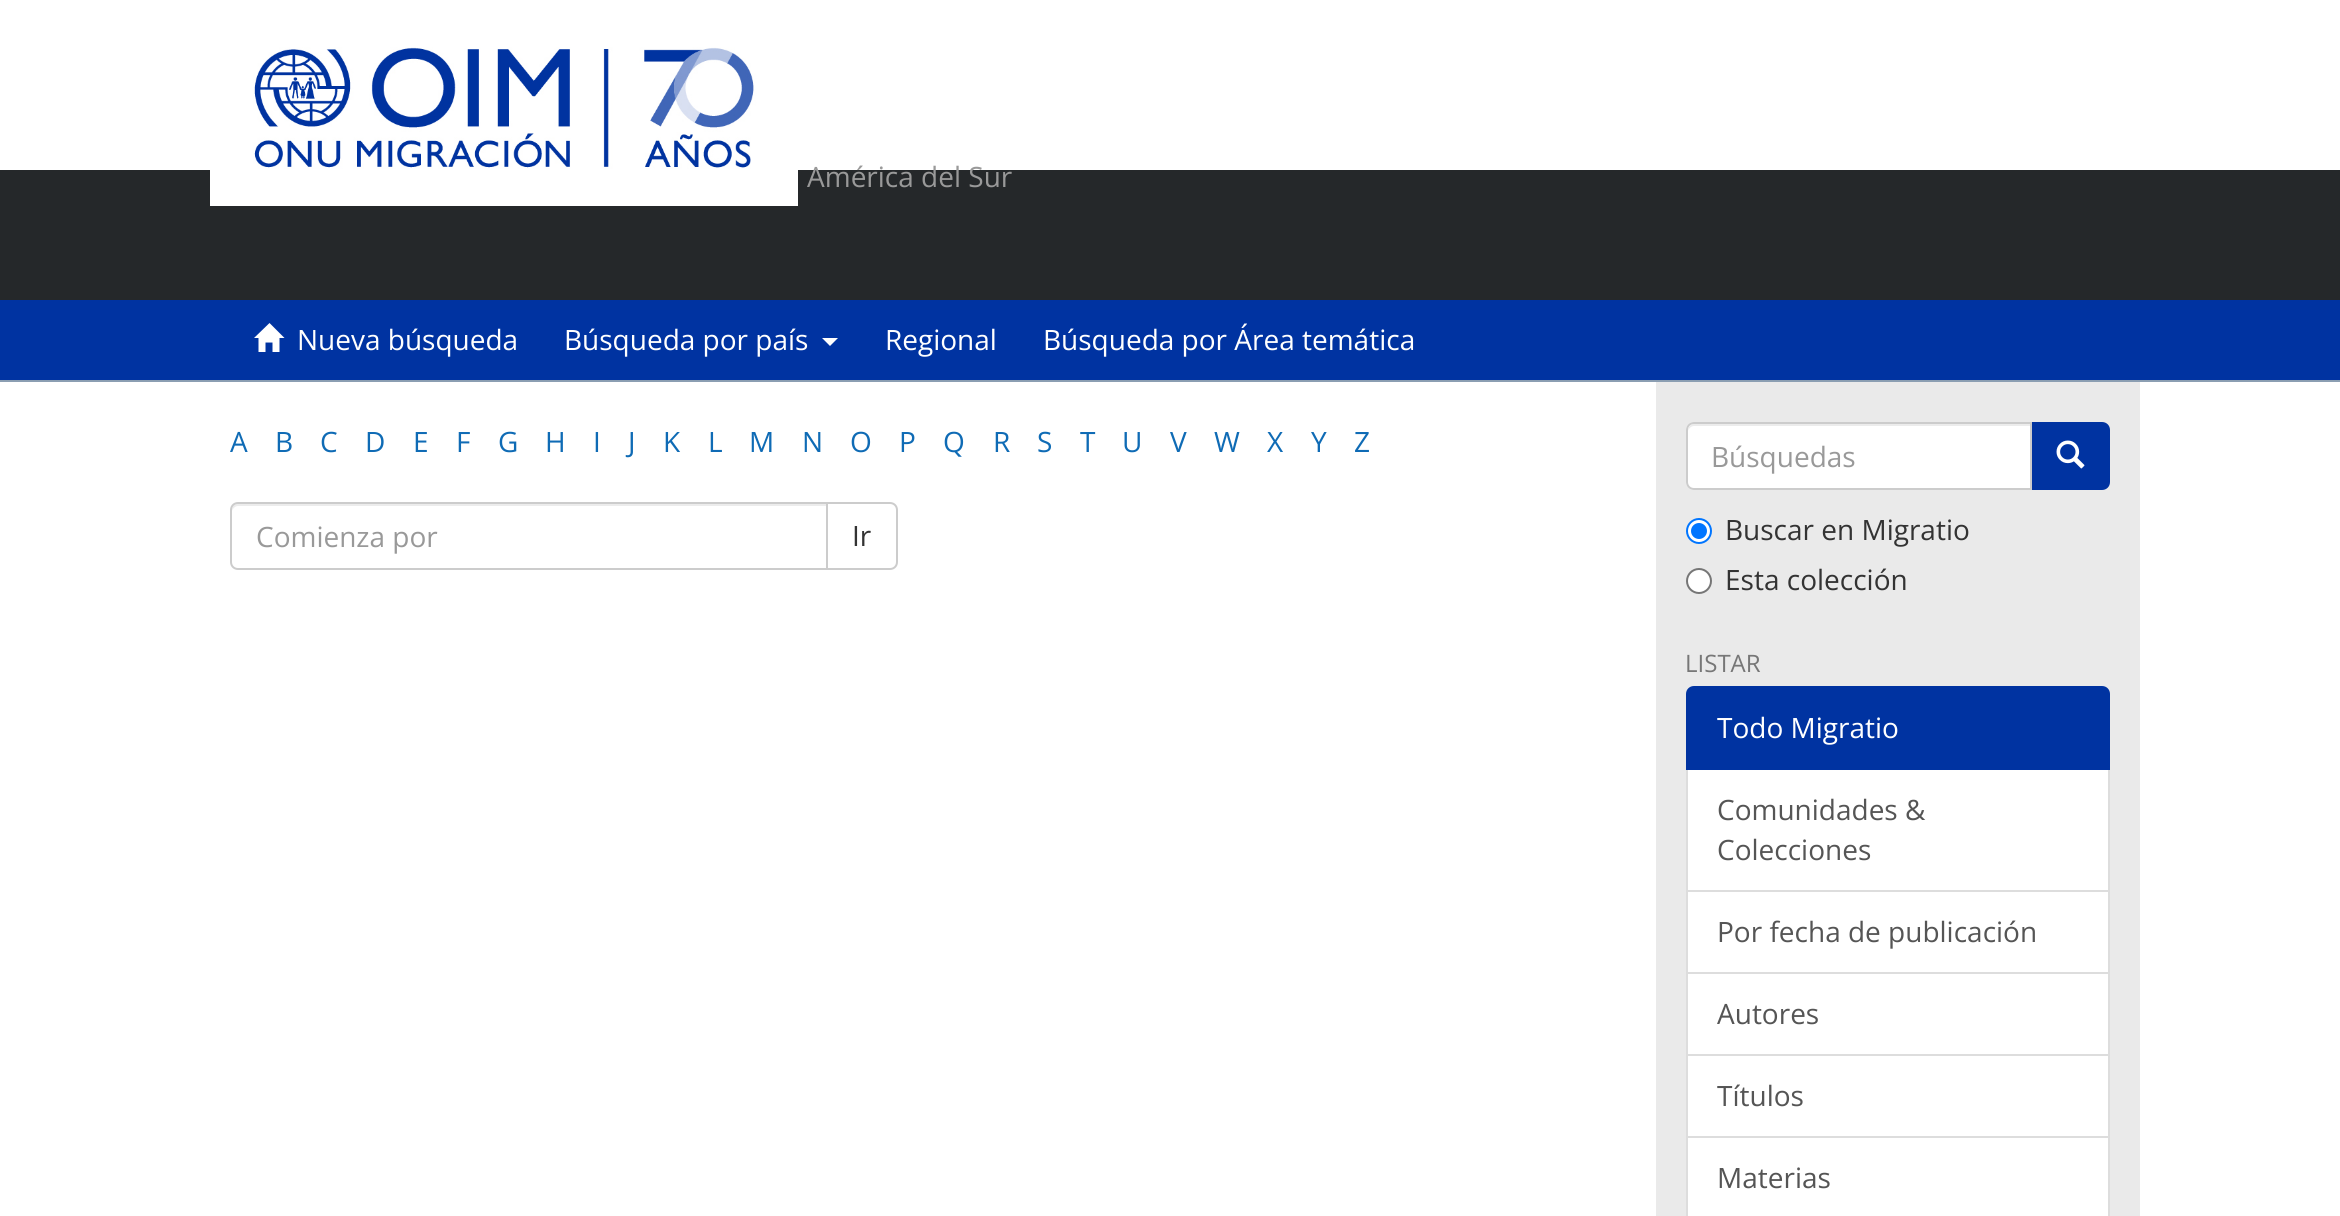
#include <cairo/cairo.h>
#include <math.h>
#include <stddef.h>


static void draw_image(cairo_t *cr, const char *path, double x, double y, double w, double h) {
  cairo_surface_t *image = cairo_image_surface_create_from_png(path);
  cairo_save(cr);
  cairo_set_source_surface(cr, image, x, y);
  cairo_rectangle(cr, x, y, w, h);
  cairo_fill(cr);
  cairo_restore(cr);
  cairo_surface_destroy(image);
}

static void draw(cairo_t *cr) {
  cairo_set_source_rgb(cr, 1, 1, 1);
  cairo_paint(cr);
  cairo_set_source_rgb(cr, 37 / 255.0, 40 / 255.0, 42 / 255.0);
  cairo_rectangle(cr, 0, 170, 2340, 130);
  cairo_fill(cr);
  draw_image(cr, "images/1.png", 210, 47, 588, 159);
  cairo_set_source_rgb(cr, 0, 51 / 255.0, 161 / 255.0);
  cairo_rectangle(cr, 0, 300, 2340, 80);
  cairo_fill(cr);
  cairo_set_source_rgb(cr, 139 / 255.0, 158 / 255.0, 178 / 255.0);
  cairo_rectangle(cr, 0, 380, 2340, 2);
  cairo_fill(cr);
  cairo_set_source_rgb(cr, 1, 1, 1);
  cairo_new_path(cr);
  cairo_move_to(cr, 254, 338);
  cairo_line_to(cr, 269.5, 323);
  cairo_line_to(cr, 284.5, 338);
  cairo_line_to(cr, 279.5, 338);
  cairo_line_to(cr, 279.5, 352);
  cairo_line_to(cr, 272.5, 352);
  cairo_line_to(cr, 272.5, 342.5);
  cairo_line_to(cr, 265.5, 342.5);
  cairo_line_to(cr, 265.5, 352);
  cairo_line_to(cr, 258.5, 352);
  cairo_line_to(cr, 258.5, 338);
  cairo_close_path(cr);
  cairo_fill(cr);
  cairo_new_path(cr);
  cairo_move_to(cr, 822, 338);
  cairo_line_to(cr, 838, 338);
  cairo_line_to(cr, 830, 346);
  cairo_close_path(cr);
  cairo_fill(cr);
  cairo_set_source_rgb(cr, 234 / 255.0, 234 / 255.0, 234 / 255.0);
  cairo_rectangle(cr, 1656, 382, 484, 834);
  cairo_fill(cr);
  cairo_new_path(cr);
  cairo_move_to(cr, 827, 503);
  cairo_line_to(cr, 890, 503);
  cairo_curve_to(cr, 894, 503, 897, 506, 897, 510);
  cairo_line_to(cr, 897, 562);
  cairo_curve_to(cr, 897, 566, 894, 569, 890, 569);
  cairo_line_to(cr, 827, 569);
  cairo_close_path(cr);
  cairo_set_source_rgb(cr, 204 / 255.0, 204 / 255.0, 204 / 255.0);
  cairo_stroke(cr);
  cairo_set_source_rgb(cr, 1, 1, 1);
  cairo_new_path(cr);
  cairo_move_to(cr, 238, 502);
  cairo_line_to(cr, 828, 502);
  cairo_line_to(cr, 828, 570);
  cairo_line_to(cr, 238, 570);
  cairo_curve_to(cr, 233.5, 570, 230, 566.5, 230, 562);
  cairo_line_to(cr, 230, 510);
  cairo_curve_to(cr, 230, 505.5, 233.5, 502, 238, 502);
  cairo_close_path(cr);
  cairo_fill(cr);
  cairo_set_source_rgb(cr, 236 / 255.0, 236 / 255.0, 236 / 255.0);
  cairo_new_path(cr);
  cairo_move_to(cr, 238, 506);
  cairo_line_to(cr, 826, 506);
  cairo_line_to(cr, 826, 504);
  cairo_line_to(cr, 238, 504);
  cairo_curve_to(cr, 233, 504, 232, 508, 232, 512);
  cairo_curve_to(cr, 232, 509, 235, 506, 238, 506);
  cairo_close_path(cr);
  cairo_fill(cr);
  cairo_new_path(cr);
  cairo_move_to(cr, 238, 503);
  cairo_line_to(cr, 827, 503);
  cairo_line_to(cr, 827, 569);
  cairo_line_to(cr, 238, 569);
  cairo_curve_to(cr, 234, 569, 231, 566, 231, 562);
  cairo_line_to(cr, 231, 510);
  cairo_curve_to(cr, 231, 506, 234, 503, 238, 503);
  cairo_close_path(cr);
  cairo_set_source_rgb(cr, 204 / 255.0, 204 / 255.0, 204 / 255.0);
  cairo_stroke(cr);
  cairo_set_source_rgb(cr, 0, 51 / 255.0, 161 / 255.0);
  cairo_new_path(cr);
  cairo_move_to(cr, 2031, 423);
  cairo_line_to(cr, 2102, 423);
  cairo_curve_to(cr, 2106, 423, 2109, 426, 2109, 430);
  cairo_line_to(cr, 2109, 482);
  cairo_curve_to(cr, 2109, 486, 2106, 489, 2102, 489);
  cairo_line_to(cr, 2031, 489);
  cairo_close_path(cr);
  cairo_fill_preserve(cr);
  cairo_stroke(cr);
  cairo_set_source_rgb(cr, 1, 1, 1);
  cairo_new_path(cr);
  cairo_move_to(cr, 1694, 422);
  cairo_line_to(cr, 2032, 422);
  cairo_line_to(cr, 2032, 490);
  cairo_line_to(cr, 1694, 490);
  cairo_curve_to(cr, 1689.5, 490, 1686, 486.5, 1686, 482);
  cairo_line_to(cr, 1686, 430);
  cairo_curve_to(cr, 1686, 425.5, 1689.5, 422, 1694, 422);
  cairo_close_path(cr);
  cairo_fill(cr);
  cairo_set_source_rgb(cr, 236 / 255.0, 236 / 255.0, 236 / 255.0);
  cairo_new_path(cr);
  cairo_move_to(cr, 1694, 426);
  cairo_line_to(cr, 2030, 426);
  cairo_line_to(cr, 2030, 424);
  cairo_line_to(cr, 1693, 424);
  cairo_curve_to(cr, 1689, 425, 1688, 429, 1688, 432);
  cairo_curve_to(cr, 1688, 429, 1691, 426, 1694, 426);
  cairo_close_path(cr);
  cairo_fill(cr);
  cairo_new_path(cr);
  cairo_move_to(cr, 1694, 423);
  cairo_line_to(cr, 2031, 423);
  cairo_line_to(cr, 2031, 489);
  cairo_line_to(cr, 1694, 489);
  cairo_curve_to(cr, 1690, 489, 1687, 486, 1687, 482);
  cairo_line_to(cr, 1687, 430);
  cairo_curve_to(cr, 1687, 426, 1690, 423, 1694, 423);
  cairo_close_path(cr);
  cairo_set_source_rgb(cr, 204 / 255.0, 204 / 255.0, 204 / 255.0);
  cairo_stroke(cr);
  draw_image(cr, "images/2.png", 2056, 440, 29, 29);
  cairo_set_source_rgb(cr, 1, 1, 1);
  cairo_arc(cr, 1699, 531, 12, 0, 2 * M_PI);
  cairo_fill_preserve(cr);
  cairo_set_source_rgb(cr, 0, 117 / 255.0, 1);
  cairo_stroke(cr);
  cairo_arc(cr, 1699, 531, 8, 0, 2 * M_PI);
  cairo_fill(cr);
  cairo_set_source_rgb(cr, 1, 1, 1);
  cairo_arc(cr, 1699, 581, 12, 0, 2 * M_PI);
  cairo_fill_preserve(cr);
  cairo_set_source_rgb(cr, 118 / 255.0, 118 / 255.0, 118 / 255.0);
  cairo_stroke(cr);
  cairo_set_source_rgb(cr, 1, 1, 1);
  cairo_rectangle(cr, 1687, 769, 422, 122);
  cairo_fill_preserve(cr);
  cairo_set_source_rgb(cr, 221 / 255.0, 221 / 255.0, 221 / 255.0);
  cairo_stroke(cr);
  cairo_set_source_rgb(cr, 0, 51 / 255.0, 161 / 255.0);
  cairo_new_path(cr);
  cairo_move_to(cr, 1694, 687);
  cairo_line_to(cr, 2102, 687);
  cairo_curve_to(cr, 2106, 687, 2109, 690, 2109, 694);
  cairo_line_to(cr, 2109, 769);
  cairo_line_to(cr, 1687, 769);
  cairo_line_to(cr, 1687, 694);
  cairo_curve_to(cr, 1687, 690, 1690, 687, 1694, 687);
  cairo_close_path(cr);
  cairo_fill_preserve(cr);
  cairo_stroke(cr);
  cairo_set_source_rgb(cr, 1, 1, 1);
  cairo_rectangle(cr, 1687, 891, 422, 82);
  cairo_fill_preserve(cr);
  cairo_set_source_rgb(cr, 221 / 255.0, 221 / 255.0, 221 / 255.0);
  cairo_stroke(cr);
  cairo_set_source_rgb(cr, 1, 1, 1);
  cairo_rectangle(cr, 1687, 973, 422, 82);
  cairo_fill_preserve(cr);
  cairo_set_source_rgb(cr, 221 / 255.0, 221 / 255.0, 221 / 255.0);
  cairo_stroke(cr);
  cairo_set_source_rgb(cr, 1, 1, 1);
  cairo_rectangle(cr, 1687, 1055, 422, 82);
  cairo_fill_preserve(cr);
  cairo_set_source_rgb(cr, 221 / 255.0, 221 / 255.0, 221 / 255.0);
  cairo_stroke(cr);
  cairo_set_source_rgb(cr, 1, 1, 1);
  cairo_rectangle(cr, 1687, 1137, 422, 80);
  cairo_fill_preserve(cr);
  cairo_set_source_rgb(cr, 221 / 255.0, 221 / 255.0, 221 / 255.0);
  cairo_stroke(cr);
  cairo_select_font_face(cr, "Open Sans", CAIRO_FONT_SLANT_NORMAL, CAIRO_FONT_WEIGHT_NORMAL);
  cairo_set_font_size(cr, 28);
  cairo_set_source_rgb(cr, 153 / 255.0, 153 / 255.0, 153 / 255.0);
  cairo_move_to(cr, 807, 187);
  cairo_show_text(cr, "América del Sur");
  cairo_set_source_rgb(cr, 1, 1, 1);
  cairo_move_to(cr, 297, 350);
  cairo_show_text(cr, "Nueva búsqueda");
  cairo_move_to(cr, 564, 350);
  cairo_show_text(cr, "Búsqueda por país");
  cairo_move_to(cr, 885, 350);
  cairo_show_text(cr, "Regional");
  cairo_move_to(cr, 1043, 350);
  cairo_show_text(cr, "Búsqueda por Área temática");
  cairo_set_source_rgb(cr, 15 / 255.0, 107 / 255.0, 181 / 255.0);
  cairo_move_to(cr, 230, 452);
  cairo_show_text(cr, "A");
  cairo_move_to(cr, 275, 452);
  cairo_show_text(cr, "B");
  cairo_move_to(cr, 320, 452);
  cairo_show_text(cr, "C");
  cairo_move_to(cr, 365, 452);
  cairo_show_text(cr, "D");
  cairo_move_to(cr, 413, 452);
  cairo_show_text(cr, "E");
  cairo_move_to(cr, 456, 452);
  cairo_show_text(cr, "F");
  cairo_move_to(cr, 498, 452);
  cairo_show_text(cr, "G");
  cairo_move_to(cr, 545, 452);
  cairo_show_text(cr, "H");
  cairo_move_to(cr, 593, 452);
  cairo_show_text(cr, "I");
  cairo_move_to(cr, 628, 452);
  cairo_show_text(cr, "J");
  cairo_move_to(cr, 663, 452);
  cairo_show_text(cr, "K");
  cairo_move_to(cr, 708, 452);
  cairo_show_text(cr, "L");
  cairo_move_to(cr, 749, 452);
  cairo_show_text(cr, "M");
  cairo_move_to(cr, 802, 452);
  cairo_show_text(cr, "N");
  cairo_move_to(cr, 850, 452);
  cairo_show_text(cr, "O");
  cairo_move_to(cr, 899, 452);
  cairo_show_text(cr, "P");
  cairo_move_to(cr, 943, 452);
  cairo_show_text(cr, "Q");
  cairo_move_to(cr, 993, 452);
  cairo_show_text(cr, "R");
  cairo_move_to(cr, 1037, 452);
  cairo_show_text(cr, "S");
  cairo_move_to(cr, 1080, 452);
  cairo_show_text(cr, "T");
  cairo_move_to(cr, 1122, 452);
  cairo_show_text(cr, "U");
  cairo_move_to(cr, 1170, 452);
  cairo_show_text(cr, "V");
  cairo_move_to(cr, 1214, 452);
  cairo_show_text(cr, "W");
  cairo_move_to(cr, 1267, 452);
  cairo_show_text(cr, "X");
  cairo_move_to(cr, 1311, 452);
  cairo_show_text(cr, "Y");
  cairo_move_to(cr, 1354, 452);
  cairo_show_text(cr, "Z");
  cairo_set_source_rgb(cr, 153 / 255.0, 153 / 255.0, 153 / 255.0);
  cairo_move_to(cr, 256, 547);
  cairo_show_text(cr, "Comienza por");
  cairo_set_source_rgb(cr, 51 / 255.0, 51 / 255.0, 51 / 255.0);
  cairo_move_to(cr, 852, 546);
  cairo_show_text(cr, "Ir");
  cairo_set_source_rgb(cr, 153 / 255.0, 153 / 255.0, 153 / 255.0);
  cairo_move_to(cr, 1711, 467);
  cairo_show_text(cr, "Búsquedas");
  cairo_set_source_rgb(cr, 51 / 255.0, 51 / 255.0, 51 / 255.0);
  cairo_move_to(cr, 1725, 540);
  cairo_show_text(cr, "Buscar en Migratio");
  cairo_move_to(cr, 1725, 590);
  cairo_show_text(cr, "Esta colección");
  cairo_set_font_size(cr, 24);
  cairo_set_source_rgb(cr, 119 / 255.0, 119 / 255.0, 119 / 255.0);
  cairo_move_to(cr, 1685, 672);
  cairo_show_text(cr, "LISTAR");
  cairo_set_font_size(cr, 28);
  cairo_set_source_rgb(cr, 1, 1, 1);
  cairo_move_to(cr, 1717, 738);
  cairo_show_text(cr, "Todo Migratio");
  cairo_set_source_rgb(cr, 85 / 255.0, 85 / 255.0, 85 / 255.0);
  cairo_move_to(cr, 1717, 820);
  cairo_show_text(cr, "Comunidades &");
  cairo_move_to(cr, 1717, 860);
  cairo_show_text(cr, "Colecciones");
  cairo_move_to(cr, 1717, 942);
  cairo_show_text(cr, "Por fecha de publicación");
  cairo_move_to(cr, 1717, 1024);
  cairo_show_text(cr, "Autores");
  cairo_move_to(cr, 1717, 1106);
  cairo_show_text(cr, "Títulos");
  cairo_move_to(cr, 1717, 1188);
  cairo_show_text(cr, "Materias");
}

int main(void) {
  cairo_surface_t *surface = cairo_image_surface_create(CAIRO_FORMAT_RGB24, 2340, 1216);
  cairo_t *cr = cairo_create(surface);
  cairo_font_options_t *options = cairo_font_options_create();
  cairo_font_options_set_hint_metrics(options, CAIRO_HINT_METRICS_OFF);
  cairo_font_options_set_hint_style(options, CAIRO_HINT_STYLE_NONE);
  cairo_set_font_options(cr, options);
  cairo_set_miter_limit(cr, 4);
  draw(cr);
  cairo_surface_write_to_png(surface, "out.png");
  cairo_font_options_destroy(options);
  cairo_destroy(cr);
  cairo_surface_destroy(surface);
  return 0;
}
